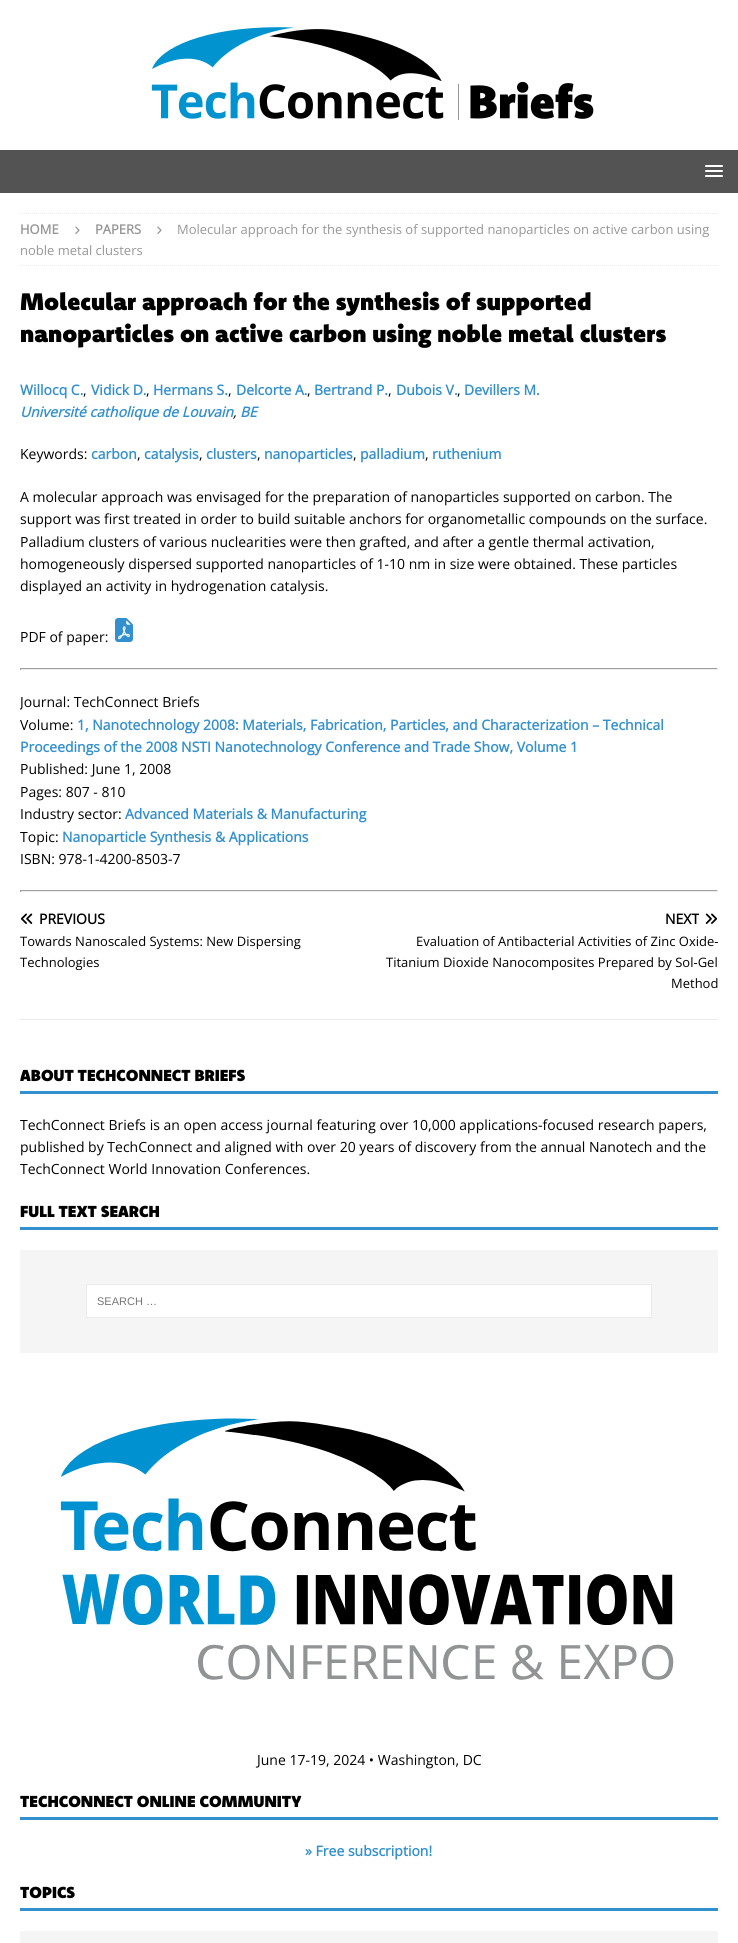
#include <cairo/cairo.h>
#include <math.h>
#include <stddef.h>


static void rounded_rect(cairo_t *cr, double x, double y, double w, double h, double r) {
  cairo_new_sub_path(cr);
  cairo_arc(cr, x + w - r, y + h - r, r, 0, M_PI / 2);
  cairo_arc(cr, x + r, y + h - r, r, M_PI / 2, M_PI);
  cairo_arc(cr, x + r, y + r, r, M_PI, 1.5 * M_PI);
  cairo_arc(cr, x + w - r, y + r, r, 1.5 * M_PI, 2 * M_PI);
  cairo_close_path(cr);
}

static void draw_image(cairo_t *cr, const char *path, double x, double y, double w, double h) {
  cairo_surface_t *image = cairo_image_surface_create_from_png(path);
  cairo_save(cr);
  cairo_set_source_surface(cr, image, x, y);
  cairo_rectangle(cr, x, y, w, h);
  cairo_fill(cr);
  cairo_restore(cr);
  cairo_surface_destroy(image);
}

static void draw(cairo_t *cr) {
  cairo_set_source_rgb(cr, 1, 1, 1);
  cairo_paint(cr);
  draw_image(cr, "images/1.png", 151, 27, 443, 93);
  cairo_set_source_rgb(cr, 83 / 255.0, 83 / 255.0, 83 / 255.0);
  cairo_rectangle(cr, 0, 150, 738, 43);
  cairo_fill(cr);
  cairo_set_source_rgb(cr, 1, 1, 1);
  rounded_rect(cr, 705, 165, 18, 2, 1);
  cairo_fill(cr);
  rounded_rect(cr, 705, 170, 18, 2, 1);
  cairo_fill(cr);
  rounded_rect(cr, 705, 175, 18, 2, 1);
  cairo_fill(cr);
  cairo_new_path(cr);
  cairo_move_to(cr, 20, 213.5);
  cairo_line_to(cr, 718, 213.5);
  cairo_set_source_rgb(cr, 235 / 255.0, 235 / 255.0, 235 / 255.0);
  cairo_set_line_width(cr, 1);
  cairo_set_dash(cr, (double[]){1, 1}, 2, 0);
  cairo_stroke(cr);
  cairo_new_path(cr);
  cairo_move_to(cr, 20, 265.5);
  cairo_line_to(cr, 718, 265.5);
  cairo_stroke(cr);
  draw_image(cr, "images/2.png", 75, 226, 5, 8);
  draw_image(cr, "images/2.png", 157, 226, 5, 8);
  draw_image(cr, "images/3.png", 115, 618, 18, 24);
  cairo_set_source_rgb(cr, 159 / 255.0, 159 / 255.0, 159 / 255.0);
  cairo_rectangle(cr, 20, 668, 698, 1);
  cairo_fill(cr);
  cairo_set_source_rgb(cr, 238 / 255.0, 238 / 255.0, 238 / 255.0);
  cairo_rectangle(cr, 717, 668, 1, 2);
  cairo_fill(cr);
  cairo_rectangle(cr, 20, 669, 698, 1);
  cairo_fill(cr);
  cairo_set_source_rgb(cr, 159 / 255.0, 159 / 255.0, 159 / 255.0);
  cairo_rectangle(cr, 20, 668, 1, 2);
  cairo_fill(cr);
  cairo_rectangle(cr, 20, 890, 698, 1);
  cairo_fill(cr);
  cairo_set_source_rgb(cr, 238 / 255.0, 238 / 255.0, 238 / 255.0);
  cairo_rectangle(cr, 717, 890, 1, 2);
  cairo_fill(cr);
  cairo_rectangle(cr, 20, 891, 698, 1);
  cairo_fill(cr);
  cairo_set_source_rgb(cr, 159 / 255.0, 159 / 255.0, 159 / 255.0);
  cairo_rectangle(cr, 20, 890, 1, 2);
  cairo_fill(cr);
  cairo_set_source_rgb(cr, 235 / 255.0, 235 / 255.0, 235 / 255.0);
  cairo_rectangle(cr, 20, 1019, 698, 1);
  cairo_fill(cr);
  draw_image(cr, "images/4.png", 20, 913, 13, 11);
  draw_image(cr, "images/5.png", 705, 913, 13, 11);
  cairo_set_source_rgb(cr, 51 / 255.0, 144 / 255.0, 207 / 255.0);
  cairo_rectangle(cr, 20, 1091, 698, 3);
  cairo_fill(cr);
  cairo_rectangle(cr, 20, 1227, 698, 3);
  cairo_fill(cr);
  cairo_set_source_rgb(cr, 245 / 255.0, 245 / 255.0, 245 / 255.0);
  cairo_rectangle(cr, 20, 1250, 698, 103);
  cairo_fill(cr);
  cairo_set_source_rgb(cr, 1, 1, 1);
  cairo_rectangle(cr, 86.5, 1284.5, 565, 33);
  cairo_fill_preserve(cr);
  cairo_set_source_rgb(cr, 235 / 255.0, 235 / 255.0, 235 / 255.0);
  cairo_set_dash(cr, NULL, 0, 0);
  cairo_stroke(cr);
  draw_image(cr, "images/6.png", 60, 1418, 614, 262);
  cairo_set_source_rgb(cr, 51 / 255.0, 144 / 255.0, 207 / 255.0);
  cairo_rectangle(cr, 20, 1817, 698, 3);
  cairo_fill(cr);
  cairo_rectangle(cr, 20, 1908, 698, 3);
  cairo_fill(cr);
  cairo_set_source_rgb(cr, 245 / 255.0, 245 / 255.0, 245 / 255.0);
  cairo_rectangle(cr, 20, 1931, 698, 12);
  cairo_fill(cr);
  cairo_select_font_face(cr, "Open Sans", CAIRO_FONT_SLANT_NORMAL, CAIRO_FONT_WEIGHT_BOLD);
  cairo_set_font_size(cr, 13);
  cairo_set_source_rgb(cr, 151 / 255.0, 151 / 255.0, 151 / 255.0);
  cairo_move_to(cr, 20, 234);
  cairo_show_text(cr, "HOME");
  cairo_move_to(cr, 95, 234);
  cairo_show_text(cr, "PAPERS");
  cairo_select_font_face(cr, "Open Sans", CAIRO_FONT_SLANT_NORMAL, CAIRO_FONT_WEIGHT_NORMAL);
  cairo_move_to(cr, 177, 234);
  cairo_show_text(cr, "Molecular approach for the synthesis of supported nanoparticles on active carbon using");
  cairo_move_to(cr, 20, 255);
  cairo_show_text(cr, "noble metal clusters");
  cairo_select_font_face(cr, "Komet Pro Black", CAIRO_FONT_SLANT_NORMAL, CAIRO_FONT_WEIGHT_NORMAL);
  cairo_set_font_size(cr, 24);
  cairo_set_source_rgb(cr, 0, 0, 0);
  cairo_move_to(cr, 20, 310);
  cairo_show_text(cr, "Molecular approach for the synthesis of supported");
  cairo_move_to(cr, 20, 342);
  cairo_show_text(cr, "nanoparticles on active carbon using noble metal clusters");
  cairo_select_font_face(cr, "Open Sans", CAIRO_FONT_SLANT_NORMAL, CAIRO_FONT_WEIGHT_BOLD);
  cairo_set_font_size(cr, 14);
  cairo_set_source_rgb(cr, 51 / 255.0, 144 / 255.0, 207 / 255.0);
  cairo_move_to(cr, 20, 395);
  cairo_show_text(cr, "Willocq C.");
  cairo_select_font_face(cr, "Open Sans", CAIRO_FONT_SLANT_NORMAL, CAIRO_FONT_WEIGHT_NORMAL);
  cairo_set_source_rgb(cr, 0, 0, 0);
  cairo_move_to(cr, 83, 395);
  cairo_show_text(cr, ",");
  cairo_select_font_face(cr, "Open Sans", CAIRO_FONT_SLANT_NORMAL, CAIRO_FONT_WEIGHT_BOLD);
  cairo_set_source_rgb(cr, 51 / 255.0, 144 / 255.0, 207 / 255.0);
  cairo_move_to(cr, 91, 395);
  cairo_show_text(cr, "Vidick D.");
  cairo_select_font_face(cr, "Open Sans", CAIRO_FONT_SLANT_NORMAL, CAIRO_FONT_WEIGHT_NORMAL);
  cairo_set_source_rgb(cr, 0, 0, 0);
  cairo_move_to(cr, 146, 395);
  cairo_show_text(cr, ",");
  cairo_select_font_face(cr, "Open Sans", CAIRO_FONT_SLANT_NORMAL, CAIRO_FONT_WEIGHT_BOLD);
  cairo_set_source_rgb(cr, 51 / 255.0, 144 / 255.0, 207 / 255.0);
  cairo_move_to(cr, 153, 395);
  cairo_show_text(cr, "Hermans S.");
  cairo_select_font_face(cr, "Open Sans", CAIRO_FONT_SLANT_NORMAL, CAIRO_FONT_WEIGHT_NORMAL);
  cairo_set_source_rgb(cr, 0, 0, 0);
  cairo_move_to(cr, 228, 395);
  cairo_show_text(cr, ",");
  cairo_select_font_face(cr, "Open Sans", CAIRO_FONT_SLANT_NORMAL, CAIRO_FONT_WEIGHT_BOLD);
  cairo_set_source_rgb(cr, 51 / 255.0, 144 / 255.0, 207 / 255.0);
  cairo_move_to(cr, 236, 395);
  cairo_show_text(cr, "Delcorte A.");
  cairo_select_font_face(cr, "Open Sans", CAIRO_FONT_SLANT_NORMAL, CAIRO_FONT_WEIGHT_NORMAL);
  cairo_set_source_rgb(cr, 0, 0, 0);
  cairo_move_to(cr, 307, 395);
  cairo_show_text(cr, ",");
  cairo_select_font_face(cr, "Open Sans", CAIRO_FONT_SLANT_NORMAL, CAIRO_FONT_WEIGHT_BOLD);
  cairo_set_source_rgb(cr, 51 / 255.0, 144 / 255.0, 207 / 255.0);
  cairo_move_to(cr, 314, 395);
  cairo_show_text(cr, "Bertrand P.");
  cairo_select_font_face(cr, "Open Sans", CAIRO_FONT_SLANT_NORMAL, CAIRO_FONT_WEIGHT_NORMAL);
  cairo_set_source_rgb(cr, 0, 0, 0);
  cairo_move_to(cr, 388, 395);
  cairo_show_text(cr, ",");
  cairo_select_font_face(cr, "Open Sans", CAIRO_FONT_SLANT_NORMAL, CAIRO_FONT_WEIGHT_BOLD);
  cairo_set_source_rgb(cr, 51 / 255.0, 144 / 255.0, 207 / 255.0);
  cairo_move_to(cr, 396, 395);
  cairo_show_text(cr, "Dubois V.");
  cairo_select_font_face(cr, "Open Sans", CAIRO_FONT_SLANT_NORMAL, CAIRO_FONT_WEIGHT_NORMAL);
  cairo_set_source_rgb(cr, 0, 0, 0);
  cairo_move_to(cr, 457, 395);
  cairo_show_text(cr, ",");
  cairo_select_font_face(cr, "Open Sans", CAIRO_FONT_SLANT_NORMAL, CAIRO_FONT_WEIGHT_BOLD);
  cairo_set_source_rgb(cr, 51 / 255.0, 144 / 255.0, 207 / 255.0);
  cairo_move_to(cr, 464, 395);
  cairo_show_text(cr, "Devillers M.");
  cairo_select_font_face(cr, "Open Sans", CAIRO_FONT_SLANT_ITALIC, CAIRO_FONT_WEIGHT_BOLD);
  cairo_move_to(cr, 20, 417);
  cairo_show_text(cr, "Université catholique de Louvain");
  cairo_select_font_face(cr, "Open Sans", CAIRO_FONT_SLANT_ITALIC, CAIRO_FONT_WEIGHT_NORMAL);
  cairo_set_source_rgb(cr, 0, 0, 0);
  cairo_move_to(cr, 233, 417);
  cairo_show_text(cr, ",");
  cairo_select_font_face(cr, "Open Sans", CAIRO_FONT_SLANT_ITALIC, CAIRO_FONT_WEIGHT_BOLD);
  cairo_set_source_rgb(cr, 51 / 255.0, 144 / 255.0, 207 / 255.0);
  cairo_move_to(cr, 240, 417);
  cairo_show_text(cr, "BE");
  cairo_select_font_face(cr, "Open Sans", CAIRO_FONT_SLANT_NORMAL, CAIRO_FONT_WEIGHT_NORMAL);
  cairo_set_source_rgb(cr, 0, 0, 0);
  cairo_move_to(cr, 20, 459);
  cairo_show_text(cr, "Keywords:");
  cairo_select_font_face(cr, "Open Sans", CAIRO_FONT_SLANT_NORMAL, CAIRO_FONT_WEIGHT_BOLD);
  cairo_set_source_rgb(cr, 51 / 255.0, 144 / 255.0, 207 / 255.0);
  cairo_move_to(cr, 91, 459);
  cairo_show_text(cr, "carbon");
  cairo_select_font_face(cr, "Open Sans", CAIRO_FONT_SLANT_NORMAL, CAIRO_FONT_WEIGHT_NORMAL);
  cairo_set_source_rgb(cr, 0, 0, 0);
  cairo_move_to(cr, 137, 459);
  cairo_show_text(cr, ",");
  cairo_select_font_face(cr, "Open Sans", CAIRO_FONT_SLANT_NORMAL, CAIRO_FONT_WEIGHT_BOLD);
  cairo_set_source_rgb(cr, 51 / 255.0, 144 / 255.0, 207 / 255.0);
  cairo_move_to(cr, 144, 459);
  cairo_show_text(cr, "catalysis");
  cairo_select_font_face(cr, "Open Sans", CAIRO_FONT_SLANT_NORMAL, CAIRO_FONT_WEIGHT_NORMAL);
  cairo_set_source_rgb(cr, 0, 0, 0);
  cairo_move_to(cr, 199, 459);
  cairo_show_text(cr, ",");
  cairo_select_font_face(cr, "Open Sans", CAIRO_FONT_SLANT_NORMAL, CAIRO_FONT_WEIGHT_BOLD);
  cairo_set_source_rgb(cr, 51 / 255.0, 144 / 255.0, 207 / 255.0);
  cairo_move_to(cr, 206, 459);
  cairo_show_text(cr, "clusters");
  cairo_select_font_face(cr, "Open Sans", CAIRO_FONT_SLANT_NORMAL, CAIRO_FONT_WEIGHT_NORMAL);
  cairo_set_source_rgb(cr, 0, 0, 0);
  cairo_move_to(cr, 257, 459);
  cairo_show_text(cr, ",");
  cairo_select_font_face(cr, "Open Sans", CAIRO_FONT_SLANT_NORMAL, CAIRO_FONT_WEIGHT_BOLD);
  cairo_set_source_rgb(cr, 51 / 255.0, 144 / 255.0, 207 / 255.0);
  cairo_move_to(cr, 264, 459);
  cairo_show_text(cr, "nanoparticles");
  cairo_select_font_face(cr, "Open Sans", CAIRO_FONT_SLANT_NORMAL, CAIRO_FONT_WEIGHT_NORMAL);
  cairo_set_source_rgb(cr, 0, 0, 0);
  cairo_move_to(cr, 353, 459);
  cairo_show_text(cr, ",");
  cairo_select_font_face(cr, "Open Sans", CAIRO_FONT_SLANT_NORMAL, CAIRO_FONT_WEIGHT_BOLD);
  cairo_set_source_rgb(cr, 51 / 255.0, 144 / 255.0, 207 / 255.0);
  cairo_move_to(cr, 360, 459);
  cairo_show_text(cr, "palladium");
  cairo_select_font_face(cr, "Open Sans", CAIRO_FONT_SLANT_NORMAL, CAIRO_FONT_WEIGHT_NORMAL);
  cairo_set_source_rgb(cr, 0, 0, 0);
  cairo_move_to(cr, 425, 459);
  cairo_show_text(cr, ",");
  cairo_select_font_face(cr, "Open Sans", CAIRO_FONT_SLANT_NORMAL, CAIRO_FONT_WEIGHT_BOLD);
  cairo_set_source_rgb(cr, 51 / 255.0, 144 / 255.0, 207 / 255.0);
  cairo_move_to(cr, 432, 459);
  cairo_show_text(cr, "ruthenium");
  cairo_select_font_face(cr, "Open Sans", CAIRO_FONT_SLANT_NORMAL, CAIRO_FONT_WEIGHT_NORMAL);
  cairo_set_source_rgb(cr, 0, 0, 0);
  cairo_move_to(cr, 20, 502);
  cairo_show_text(cr, "A molecular approach was envisaged for the preparation of nanoparticles supported on carbon. The");
  cairo_move_to(cr, 20, 524);
  cairo_show_text(cr, "support was first treated in order to build suitable anchors for organometallic compounds on the surface.");
  cairo_move_to(cr, 20, 547);
  cairo_show_text(cr, "Palladium clusters of various nuclearities were then grafted, and after a gentle thermal activation,");
  cairo_move_to(cr, 20, 569);
  cairo_show_text(cr, "homogeneously dispersed supported nanoparticles of 1-10 nm in size were obtained. These particles");
  cairo_move_to(cr, 20, 591);
  cairo_show_text(cr, "displayed an activity in hydrogenation catalysis.");
  cairo_move_to(cr, 20, 642);
  cairo_show_text(cr, "PDF of paper:");
  cairo_save(cr);
  cairo_rectangle(cr, 20, 213, 698, 832);
  cairo_clip(cr);
  cairo_move_to(cr, 20, 707);
  cairo_show_text(cr, "Journal: TechConnect Briefs");
  cairo_restore(cr);
  cairo_move_to(cr, 20, 730);
  cairo_show_text(cr, "Volume:");
  cairo_select_font_face(cr, "Open Sans", CAIRO_FONT_SLANT_NORMAL, CAIRO_FONT_WEIGHT_BOLD);
  cairo_set_source_rgb(cr, 51 / 255.0, 144 / 255.0, 207 / 255.0);
  cairo_move_to(cr, 77, 730);
  cairo_show_text(cr, "1, Nanotechnology 2008: Materials, Fabrication, Particles, and Characterization – Technical");
  cairo_move_to(cr, 20, 752);
  cairo_show_text(cr, "Proceedings of the 2008 NSTI Nanotechnology Conference and Trade Show, Volume 1");
  cairo_select_font_face(cr, "Open Sans", CAIRO_FONT_SLANT_NORMAL, CAIRO_FONT_WEIGHT_NORMAL);
  cairo_set_source_rgb(cr, 0, 0, 0);
  cairo_move_to(cr, 20, 774);
  cairo_show_text(cr, "Published: June 1, 2008");
  cairo_move_to(cr, 20, 797);
  cairo_show_text(cr, "Pages: 807 - 810");
  cairo_move_to(cr, 20, 819);
  cairo_show_text(cr, "Industry sector:");
  cairo_select_font_face(cr, "Open Sans", CAIRO_FONT_SLANT_NORMAL, CAIRO_FONT_WEIGHT_BOLD);
  cairo_set_source_rgb(cr, 51 / 255.0, 144 / 255.0, 207 / 255.0);
  cairo_move_to(cr, 125, 819);
  cairo_show_text(cr, "Advanced Materials & Manufacturing");
  cairo_select_font_face(cr, "Open Sans", CAIRO_FONT_SLANT_NORMAL, CAIRO_FONT_WEIGHT_NORMAL);
  cairo_set_source_rgb(cr, 0, 0, 0);
  cairo_move_to(cr, 20, 842);
  cairo_show_text(cr, "Topic:");
  cairo_select_font_face(cr, "Open Sans", CAIRO_FONT_SLANT_NORMAL, CAIRO_FONT_WEIGHT_BOLD);
  cairo_set_source_rgb(cr, 51 / 255.0, 144 / 255.0, 207 / 255.0);
  cairo_move_to(cr, 62, 842);
  cairo_show_text(cr, "Nanoparticle Synthesis & Applications");
  cairo_select_font_face(cr, "Open Sans", CAIRO_FONT_SLANT_NORMAL, CAIRO_FONT_WEIGHT_NORMAL);
  cairo_set_source_rgb(cr, 0, 0, 0);
  cairo_move_to(cr, 20, 864);
  cairo_show_text(cr, "ISBN: 978-1-4200-8503-7");
  cairo_select_font_face(cr, "Open Sans", CAIRO_FONT_SLANT_NORMAL, CAIRO_FONT_WEIGHT_BOLD);
  cairo_move_to(cr, 39, 924);
  cairo_show_text(cr, "PREVIOUS");
  cairo_select_font_face(cr, "Open Sans", CAIRO_FONT_SLANT_NORMAL, CAIRO_FONT_WEIGHT_NORMAL);
  cairo_set_font_size(cr, 13);
  cairo_move_to(cr, 20, 946);
  cairo_show_text(cr, "Towards Nanoscaled Systems: New Dispersing");
  cairo_move_to(cr, 20, 967);
  cairo_show_text(cr, "Technologies");
  cairo_select_font_face(cr, "Open Sans", CAIRO_FONT_SLANT_NORMAL, CAIRO_FONT_WEIGHT_BOLD);
  cairo_set_font_size(cr, 14);
  cairo_move_to(cr, 665, 924);
  cairo_show_text(cr, "NEXT");
  cairo_select_font_face(cr, "Open Sans", CAIRO_FONT_SLANT_NORMAL, CAIRO_FONT_WEIGHT_NORMAL);
  cairo_set_font_size(cr, 13);
  cairo_move_to(cr, 416, 946);
  cairo_show_text(cr, "Evaluation of Antibacterial Activities of Zinc Oxide-");
  cairo_move_to(cr, 386, 967);
  cairo_show_text(cr, "Titanium Dioxide Nanocomposites Prepared by Sol-Gel");
  cairo_move_to(cr, 671, 988);
  cairo_show_text(cr, "Method");
  cairo_select_font_face(cr, "Komet Pro Black", CAIRO_FONT_SLANT_NORMAL, CAIRO_FONT_WEIGHT_NORMAL);
  cairo_set_font_size(cr, 16);
  cairo_move_to(cr, 20, 1081);
  cairo_show_text(cr, "ABOUT TECHCONNECT BRIEFS");
  cairo_select_font_face(cr, "Open Sans", CAIRO_FONT_SLANT_NORMAL, CAIRO_FONT_WEIGHT_NORMAL);
  cairo_set_font_size(cr, 14);
  cairo_move_to(cr, 20, 1130);
  cairo_show_text(cr, "TechConnect Briefs is an open access journal featuring over 10,000 applications-focused research papers,");
  cairo_move_to(cr, 20, 1152);
  cairo_show_text(cr, "published by TechConnect and aligned with over 20 years of discovery from the annual Nanotech and the");
  cairo_move_to(cr, 20, 1174);
  cairo_show_text(cr, "TechConnect World Innovation Conferences.");
  cairo_select_font_face(cr, "Komet Pro Black", CAIRO_FONT_SLANT_NORMAL, CAIRO_FONT_WEIGHT_NORMAL);
  cairo_set_font_size(cr, 16);
  cairo_move_to(cr, 20, 1217);
  cairo_show_text(cr, "FULL TEXT SEARCH");
  cairo_select_font_face(cr, "Liberation Sans", CAIRO_FONT_SLANT_NORMAL, CAIRO_FONT_WEIGHT_NORMAL);
  cairo_set_font_size(cr, 11);
  cairo_set_source_rgb(cr, 117 / 255.0, 117 / 255.0, 117 / 255.0);
  cairo_move_to(cr, 97, 1305);
  cairo_show_text(cr, "SEARCH …");
  cairo_select_font_face(cr, "Open Sans", CAIRO_FONT_SLANT_NORMAL, CAIRO_FONT_WEIGHT_NORMAL);
  cairo_set_font_size(cr, 14);
  cairo_set_source_rgb(cr, 0, 0, 0);
  cairo_move_to(cr, 257, 1765);
  cairo_show_text(cr, "June 17-19, 2024 • Washington, DC");
  cairo_select_font_face(cr, "Komet Pro Black", CAIRO_FONT_SLANT_NORMAL, CAIRO_FONT_WEIGHT_NORMAL);
  cairo_set_font_size(cr, 16);
  cairo_move_to(cr, 20, 1807);
  cairo_show_text(cr, "TECHCONNECT ONLINE COMMUNITY");
  cairo_select_font_face(cr, "Open Sans", CAIRO_FONT_SLANT_NORMAL, CAIRO_FONT_WEIGHT_BOLD);
  cairo_set_font_size(cr, 14);
  cairo_set_source_rgb(cr, 51 / 255.0, 144 / 255.0, 207 / 255.0);
  cairo_move_to(cr, 305, 1856);
  cairo_show_text(cr, "» Free subscription!");
  cairo_select_font_face(cr, "Komet Pro Black", CAIRO_FONT_SLANT_NORMAL, CAIRO_FONT_WEIGHT_NORMAL);
  cairo_set_font_size(cr, 16);
  cairo_set_source_rgb(cr, 0, 0, 0);
  cairo_move_to(cr, 20, 1898);
  cairo_show_text(cr, "TOPICS");
}

int main(void) {
  cairo_surface_t *surface = cairo_image_surface_create(CAIRO_FORMAT_RGB24, 738, 1943);
  cairo_t *cr = cairo_create(surface);
  cairo_font_options_t *options = cairo_font_options_create();
  cairo_font_options_set_hint_metrics(options, CAIRO_HINT_METRICS_OFF);
  cairo_font_options_set_hint_style(options, CAIRO_HINT_STYLE_NONE);
  cairo_set_font_options(cr, options);
  cairo_set_miter_limit(cr, 4);
  draw(cr);
  cairo_surface_write_to_png(surface, "out.png");
  cairo_font_options_destroy(options);
  cairo_destroy(cr);
  cairo_surface_destroy(surface);
  return 0;
}
